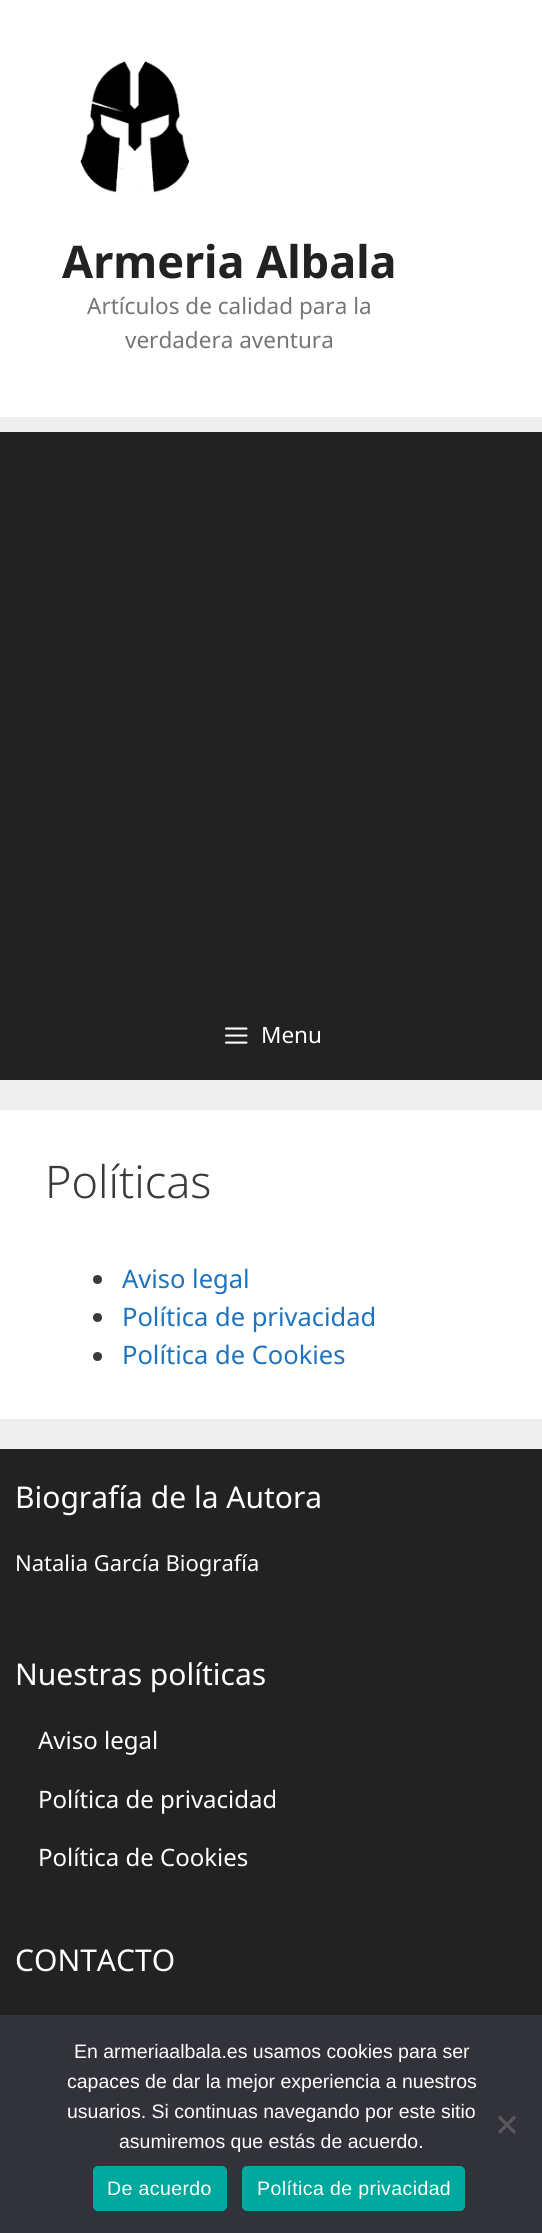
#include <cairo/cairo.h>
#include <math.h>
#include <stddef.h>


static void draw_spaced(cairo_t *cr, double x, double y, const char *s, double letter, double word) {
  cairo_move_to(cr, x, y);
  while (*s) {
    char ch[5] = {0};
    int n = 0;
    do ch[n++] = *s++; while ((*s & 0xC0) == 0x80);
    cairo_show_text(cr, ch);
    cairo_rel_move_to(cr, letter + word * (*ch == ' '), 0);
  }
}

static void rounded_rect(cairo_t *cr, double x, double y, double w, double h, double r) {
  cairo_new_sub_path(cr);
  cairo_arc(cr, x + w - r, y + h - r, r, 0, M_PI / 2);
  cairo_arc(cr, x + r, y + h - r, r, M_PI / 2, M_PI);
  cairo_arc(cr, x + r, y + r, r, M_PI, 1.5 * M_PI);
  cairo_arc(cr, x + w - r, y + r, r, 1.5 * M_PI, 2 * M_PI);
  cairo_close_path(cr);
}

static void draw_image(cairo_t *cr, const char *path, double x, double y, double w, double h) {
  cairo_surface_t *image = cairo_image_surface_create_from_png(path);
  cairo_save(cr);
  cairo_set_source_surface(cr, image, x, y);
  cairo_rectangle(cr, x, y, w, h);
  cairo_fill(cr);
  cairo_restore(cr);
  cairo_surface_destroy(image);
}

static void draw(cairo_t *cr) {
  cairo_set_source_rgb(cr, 239 / 255.0, 239 / 255.0, 239 / 255.0);
  cairo_paint(cr);
  cairo_set_source_rgb(cr, 1, 1, 1);
  cairo_rectangle(cr, 0, 0, 542, 417);
  cairo_fill(cr);
  draw_image(cr, "images/1.png", 79, 60, 111, 133);
  cairo_set_source_rgb(cr, 34 / 255.0, 34 / 255.0, 34 / 255.0);
  cairo_rectangle(cr, 0, 432, 542, 648);
  cairo_fill(cr);
  draw_image(cr, "images/2.png", 225, 1027, 23, 17);
  cairo_set_source_rgb(cr, 1, 1, 1);
  cairo_rectangle(cr, 0, 1110, 542, 309);
  cairo_fill(cr);
  cairo_set_source_rgb(cr, 58 / 255.0, 58 / 255.0, 58 / 255.0);
  cairo_arc(cr, 97.5, 1279.5, 4.5, 0, 2 * M_PI);
  cairo_fill(cr);
  cairo_arc(cr, 97.5, 1317.5, 4.5, 0, 2 * M_PI);
  cairo_fill(cr);
  cairo_arc(cr, 97.5, 1356.5, 4.5, 0, 2 * M_PI);
  cairo_fill(cr);
  cairo_set_source_rgb(cr, 34 / 255.0, 34 / 255.0, 34 / 255.0);
  cairo_rectangle(cr, 0, 1449, 542, 566);
  cairo_fill(cr);
  cairo_set_source_rgb(cr, 50 / 255.0, 50 / 255.0, 58 / 255.0);
  cairo_rectangle(cr, 0, 2015, 542, 218);
  cairo_fill(cr);
  cairo_set_source_rgb(cr, 89 / 255.0, 89 / 255.0, 93 / 255.0);
  cairo_new_path(cr);
  cairo_move_to(cr, 514, 2115.5);
  cairo_line_to(cr, 516, 2118);
  cairo_line_to(cr, 500, 2134);
  cairo_line_to(cr, 498, 2131.5);
  cairo_close_path(cr);
  cairo_fill(cr);
  cairo_new_path(cr);
  cairo_move_to(cr, 498, 2118);
  cairo_line_to(cr, 500, 2115.5);
  cairo_line_to(cr, 516, 2131.5);
  cairo_line_to(cr, 514, 2134);
  cairo_close_path(cr);
  cairo_fill(cr);
  cairo_set_source_rgb(cr, 0, 169 / 255.0, 157 / 255.0);
  rounded_rect(cr, 93, 2166, 134, 45, 5);
  cairo_fill(cr);
  rounded_rect(cr, 242, 2166, 223, 45, 5);
  cairo_fill(cr);
  cairo_select_font_face(cr, "Noto Sans", CAIRO_FONT_SLANT_NORMAL, CAIRO_FONT_WEIGHT_BOLD);
  cairo_set_font_size(cr, 45);
  cairo_set_source_rgb(cr, 34 / 255.0, 34 / 255.0, 34 / 255.0);
  cairo_move_to(cr, 62, 278);
  cairo_show_text(cr, "Armeria Albala");
  cairo_select_font_face(cr, "Noto Sans", CAIRO_FONT_SLANT_NORMAL, CAIRO_FONT_WEIGHT_NORMAL);
  cairo_set_font_size(cr, 22.5);
  cairo_set_source_rgb(cr, 117 / 255.0, 117 / 255.0, 117 / 255.0);
  cairo_move_to(cr, 87, 314);
  cairo_show_text(cr, "Artículos de calidad para la");
  cairo_move_to(cr, 125, 348);
  cairo_show_text(cr, "verdadera aventura");
  cairo_set_source_rgb(cr, 1, 1, 1);
  cairo_move_to(cr, 261, 1043);
  cairo_show_text(cr, "Menu");
  cairo_select_font_face(cr, "Noto Sans Light", CAIRO_FONT_SLANT_NORMAL, CAIRO_FONT_WEIGHT_NORMAL);
  cairo_set_font_size(cr, 45);
  cairo_set_source_rgb(cr, 58 / 255.0, 58 / 255.0, 58 / 255.0);
  cairo_move_to(cr, 45, 1198);
  cairo_show_text(cr, "Políticas");
  cairo_select_font_face(cr, "Noto Sans", CAIRO_FONT_SLANT_NORMAL, CAIRO_FONT_WEIGHT_NORMAL);
  cairo_set_font_size(cr, 25.5);
  cairo_set_source_rgb(cr, 30 / 255.0, 115 / 255.0, 190 / 255.0);
  cairo_move_to(cr, 122, 1288);
  cairo_show_text(cr, "Aviso legal");
  cairo_move_to(cr, 122, 1326);
  cairo_show_text(cr, "Política de privacidad");
  cairo_move_to(cr, 122, 1364);
  cairo_show_text(cr, "Política de Cookies");
  cairo_set_font_size(cr, 30);
  cairo_set_source_rgb(cr, 1, 1, 1);
  cairo_move_to(cr, 15, 1508);
  cairo_show_text(cr, "Biografía de la Autora");
  cairo_set_font_size(cr, 22);
  cairo_move_to(cr, 15, 1571);
  cairo_show_text(cr, "Natalia García Biografía");
  cairo_set_font_size(cr, 30);
  cairo_move_to(cr, 15, 1685);
  cairo_show_text(cr, "Nuestras políticas");
  cairo_set_font_size(cr, 24);
  cairo_move_to(cr, 38, 1749);
  cairo_show_text(cr, "Aviso legal");
  cairo_move_to(cr, 38, 1808);
  cairo_show_text(cr, "Política de privacidad");
  cairo_move_to(cr, 38, 1866);
  cairo_show_text(cr, "Política de Cookies");
  cairo_set_font_size(cr, 30);
  cairo_move_to(cr, 15, 1971);
  cairo_show_text(cr, "CONTACTO");
  cairo_select_font_face(cr, "Liberation Sans", CAIRO_FONT_SLANT_NORMAL, CAIRO_FONT_WEIGHT_NORMAL);
  cairo_set_font_size(cr, 19.5);
  cairo_move_to(cr, 74, 2058);
  cairo_show_text(cr, "En armeriaalbala.es usamos cookies para ser");
  cairo_move_to(cr, 67, 2088);
  cairo_show_text(cr, "capaces de dar la mejor experiencia a nuestros");
  cairo_move_to(cr, 67, 2118);
  cairo_show_text(cr, "usuarios. Si continuas navegando por este sitio");
  cairo_move_to(cr, 119, 2148);
  cairo_show_text(cr, "asumiremos que estás de acuerdo.");
  draw_spaced(cr, 107, 2195, "De acuerdo", 0.4, 0);
  draw_spaced(cr, 257, 2195, "Política de privacidad", 0.4, 0);
}

int main(void) {
  cairo_surface_t *surface = cairo_image_surface_create(CAIRO_FORMAT_RGB24, 542, 2233);
  cairo_t *cr = cairo_create(surface);
  cairo_font_options_t *options = cairo_font_options_create();
  cairo_font_options_set_hint_metrics(options, CAIRO_HINT_METRICS_OFF);
  cairo_font_options_set_hint_style(options, CAIRO_HINT_STYLE_NONE);
  cairo_set_font_options(cr, options);
  cairo_set_miter_limit(cr, 4);
  draw(cr);
  cairo_surface_write_to_png(surface, "out.png");
  cairo_font_options_destroy(options);
  cairo_destroy(cr);
  cairo_surface_destroy(surface);
  return 0;
}
